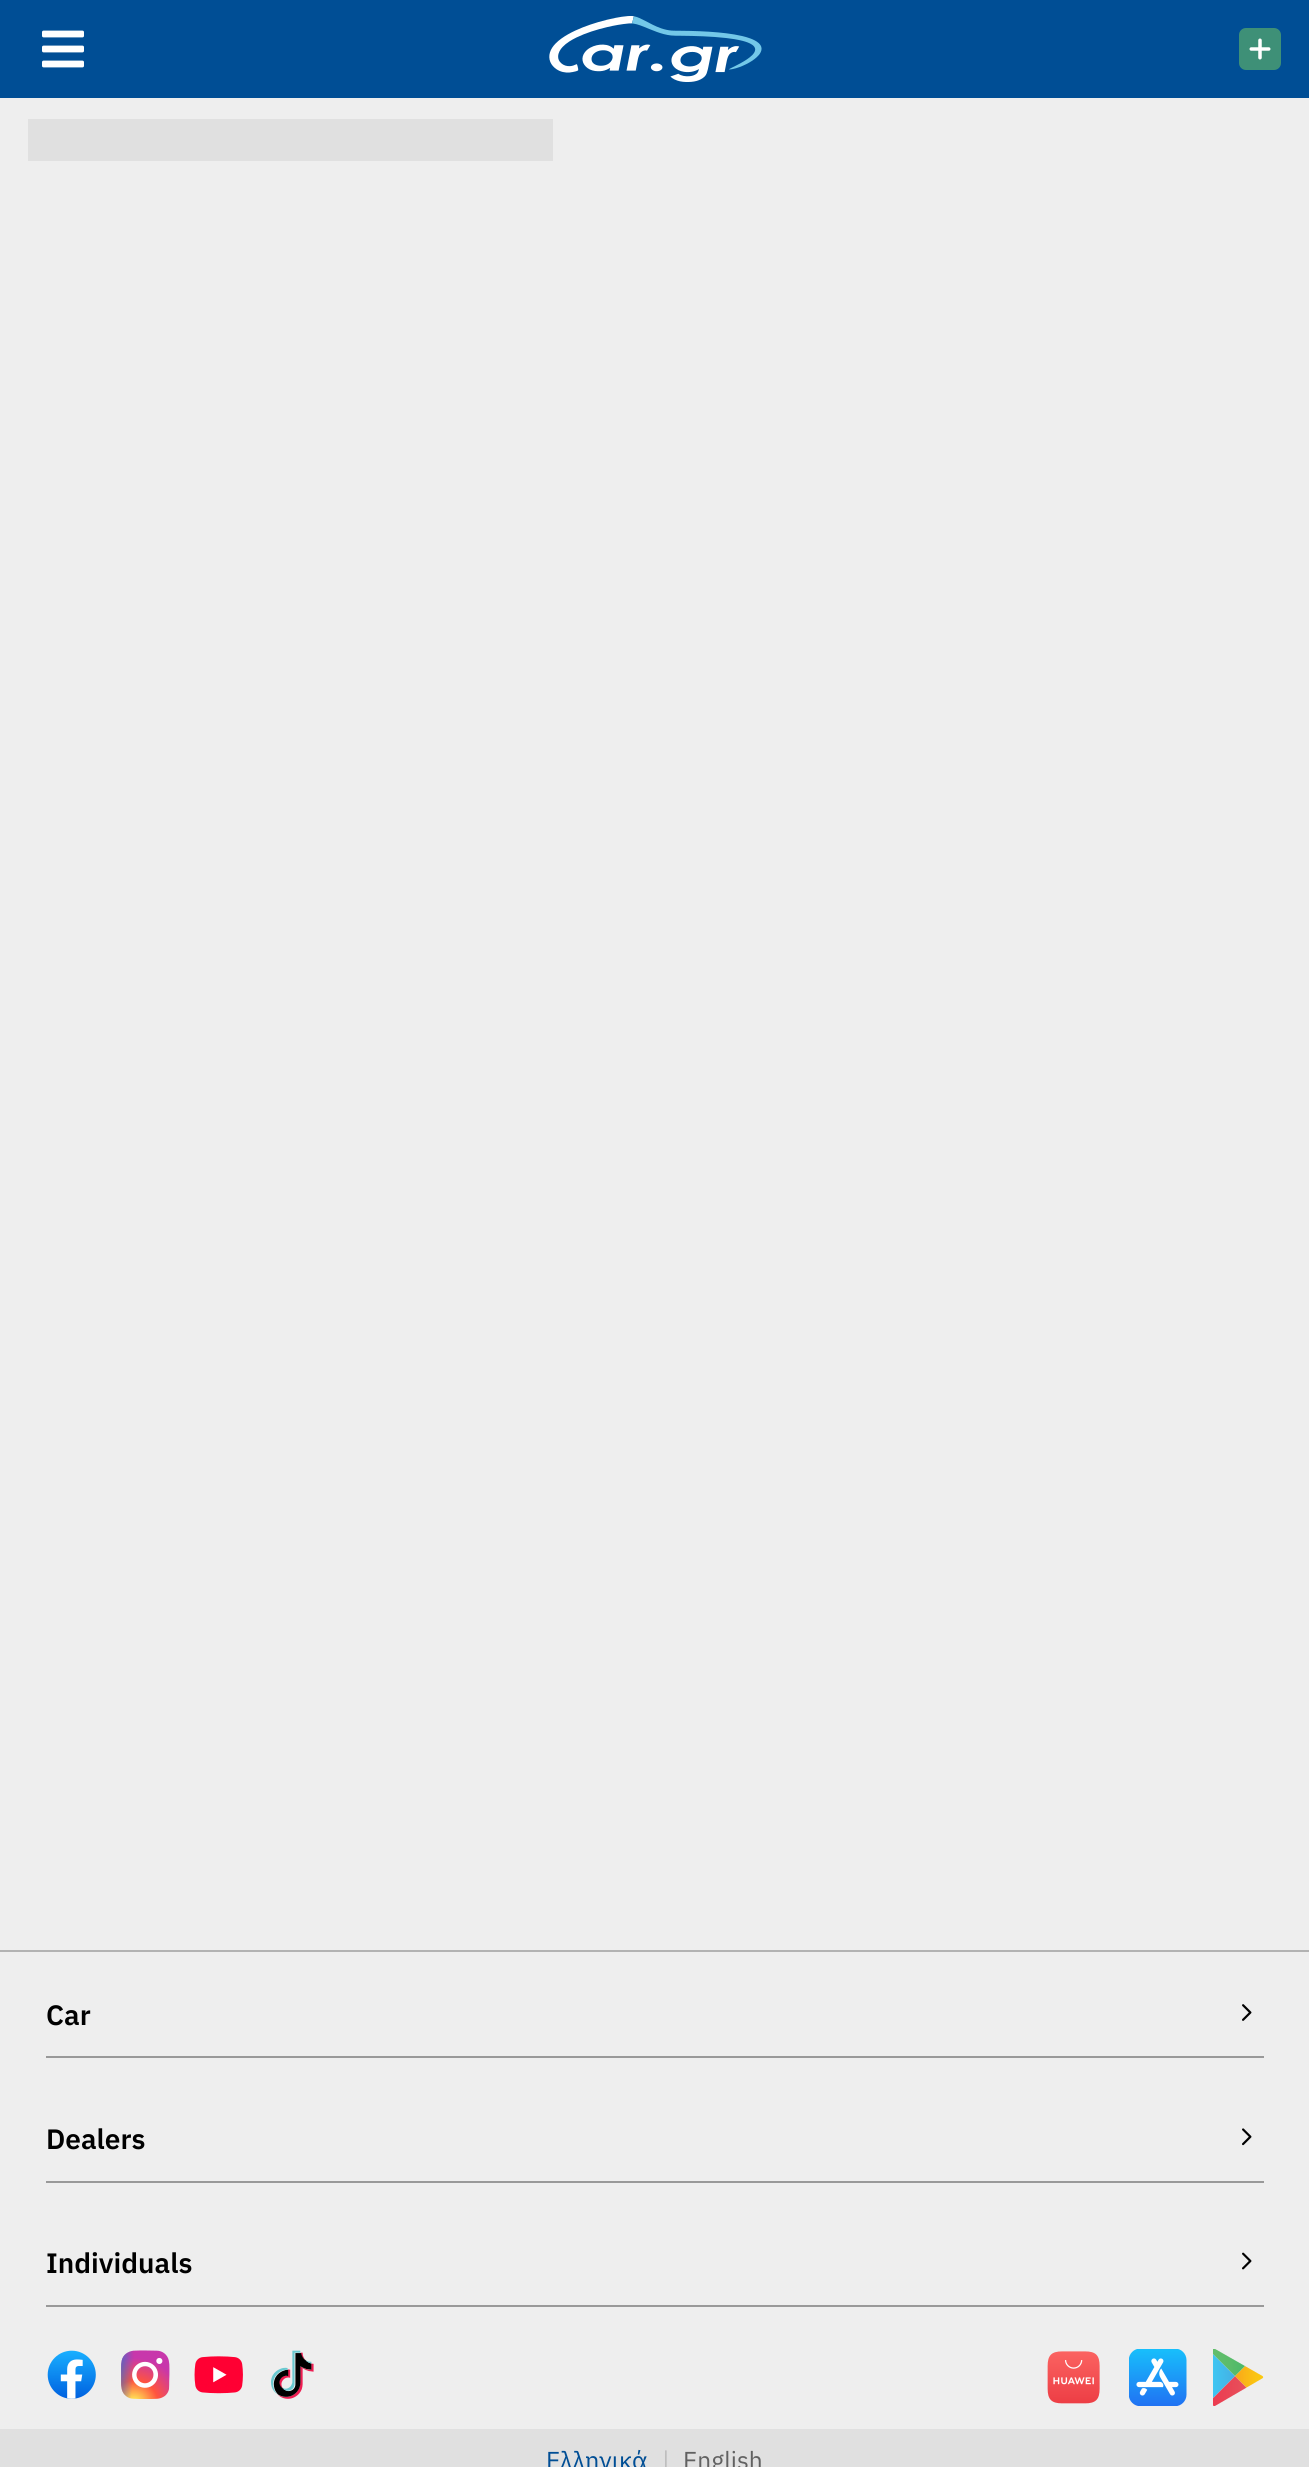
#include <cairo/cairo.h>
#include <math.h>
#include <stddef.h>


static void rounded_rect(cairo_t *cr, double x, double y, double w, double h, double r) {
  cairo_new_sub_path(cr);
  cairo_arc(cr, x + w - r, y + h - r, r, 0, M_PI / 2);
  cairo_arc(cr, x + r, y + h - r, r, M_PI / 2, M_PI);
  cairo_arc(cr, x + r, y + r, r, M_PI, 1.5 * M_PI);
  cairo_arc(cr, x + w - r, y + r, r, 1.5 * M_PI, 2 * M_PI);
  cairo_close_path(cr);
}

static void draw_image(cairo_t *cr, const char *path, double x, double y, double w, double h) {
  cairo_surface_t *image = cairo_image_surface_create_from_png(path);
  cairo_save(cr);
  cairo_set_source_surface(cr, image, x, y);
  cairo_rectangle(cr, x, y, w, h);
  cairo_fill(cr);
  cairo_restore(cr);
  cairo_surface_destroy(image);
}

static void draw(cairo_t *cr) {
  cairo_set_source_rgb(cr, 238 / 255.0, 238 / 255.0, 238 / 255.0);
  cairo_paint(cr);
  cairo_set_source_rgb(cr, 0, 78 / 255.0, 149 / 255.0);
  cairo_rectangle(cr, 0, 0, 1309, 98);
  cairo_fill(cr);
  draw_image(cr, "images/1.png", 42, 30, 42, 38);
  draw_image(cr, "images/2.png", 549, 16, 213, 66);
  cairo_set_source_rgb(cr, 62 / 255.0, 144 / 255.0, 119 / 255.0);
  rounded_rect(cr, 1239, 28, 42, 42, 7);
  cairo_fill(cr);
  draw_image(cr, "images/3.png", 1249, 38, 22, 22);
  cairo_set_source_rgb(cr, 224 / 255.0, 224 / 255.0, 224 / 255.0);
  cairo_rectangle(cr, 28, 119, 525, 42);
  cairo_fill(cr);
  cairo_set_source_rgb(cr, 178 / 255.0, 178 / 255.0, 178 / 255.0);
  cairo_rectangle(cr, 0, 1950, 1309, 2);
  cairo_fill(cr);
  cairo_set_source_rgb(cr, 153 / 255.0, 153 / 255.0, 153 / 255.0);
  cairo_rectangle(cr, 46, 2056, 1218, 2);
  cairo_fill(cr);
  draw_image(cr, "images/4.png", 1242, 2004, 10, 17);
  cairo_rectangle(cr, 46, 2181, 1218, 2);
  cairo_fill(cr);
  draw_image(cr, "images/5.png", 1242, 2128, 10, 18);
  cairo_rectangle(cr, 46, 2305, 1218, 2);
  cairo_fill(cr);
  draw_image(cr, "images/6.png", 1242, 2252, 10, 18);
  draw_image(cr, "images/7.png", 47, 2350, 49, 49);
  draw_image(cr, "images/8.png", 121, 2350, 49, 49);
  draw_image(cr, "images/9.png", 194, 2356, 49, 38);
  draw_image(cr, "images/10.png", 270, 2350, 44, 49);
  draw_image(cr, "images/11.png", 1047, 2351, 53, 53);
  draw_image(cr, "images/12.png", 1129, 2349, 58, 57);
  draw_image(cr, "images/13.png", 1213, 2349, 51, 57);
  cairo_set_source_rgb(cr, 224 / 255.0, 224 / 255.0, 224 / 255.0);
  cairo_rectangle(cr, 0, 2429, 1309, 38);
  cairo_fill(cr);
  cairo_select_font_face(cr, "IBM Plex Sans SemiBold", CAIRO_FONT_SLANT_NORMAL, CAIRO_FONT_WEIGHT_NORMAL);
  cairo_set_font_size(cr, 28);
  cairo_set_source_rgb(cr, 0, 0, 0);
  cairo_move_to(cr, 46, 2025);
  cairo_show_text(cr, "Car");
  cairo_move_to(cr, 46, 2149);
  cairo_show_text(cr, "Dealers");
  cairo_move_to(cr, 46, 2273);
  cairo_show_text(cr, "Individuals");
  cairo_select_font_face(cr, "IBM Plex Sans", CAIRO_FONT_SLANT_NORMAL, CAIRO_FONT_WEIGHT_NORMAL);
  cairo_set_font_size(cr, 24.5);
  cairo_set_source_rgb(cr, 0, 78 / 255.0, 149 / 255.0);
  cairo_move_to(cr, 546, 2469);
  cairo_show_text(cr, "Ελληνικά");
  cairo_set_source_rgb(cr, 189 / 255.0, 189 / 255.0, 189 / 255.0);
  cairo_move_to(cr, 662, 2469);
  cairo_show_text(cr, "|");
  cairo_set_source_rgb(cr, 97 / 255.0, 97 / 255.0, 97 / 255.0);
  cairo_move_to(cr, 683, 2469);
  cairo_show_text(cr, "English");
}

int main(void) {
  cairo_surface_t *surface = cairo_image_surface_create(CAIRO_FORMAT_RGB24, 1309, 2467);
  cairo_t *cr = cairo_create(surface);
  cairo_font_options_t *options = cairo_font_options_create();
  cairo_font_options_set_hint_metrics(options, CAIRO_HINT_METRICS_OFF);
  cairo_font_options_set_hint_style(options, CAIRO_HINT_STYLE_NONE);
  cairo_set_font_options(cr, options);
  cairo_set_miter_limit(cr, 4);
  draw(cr);
  cairo_surface_write_to_png(surface, "out.png");
  cairo_font_options_destroy(options);
  cairo_destroy(cr);
  cairo_surface_destroy(surface);
  return 0;
}
